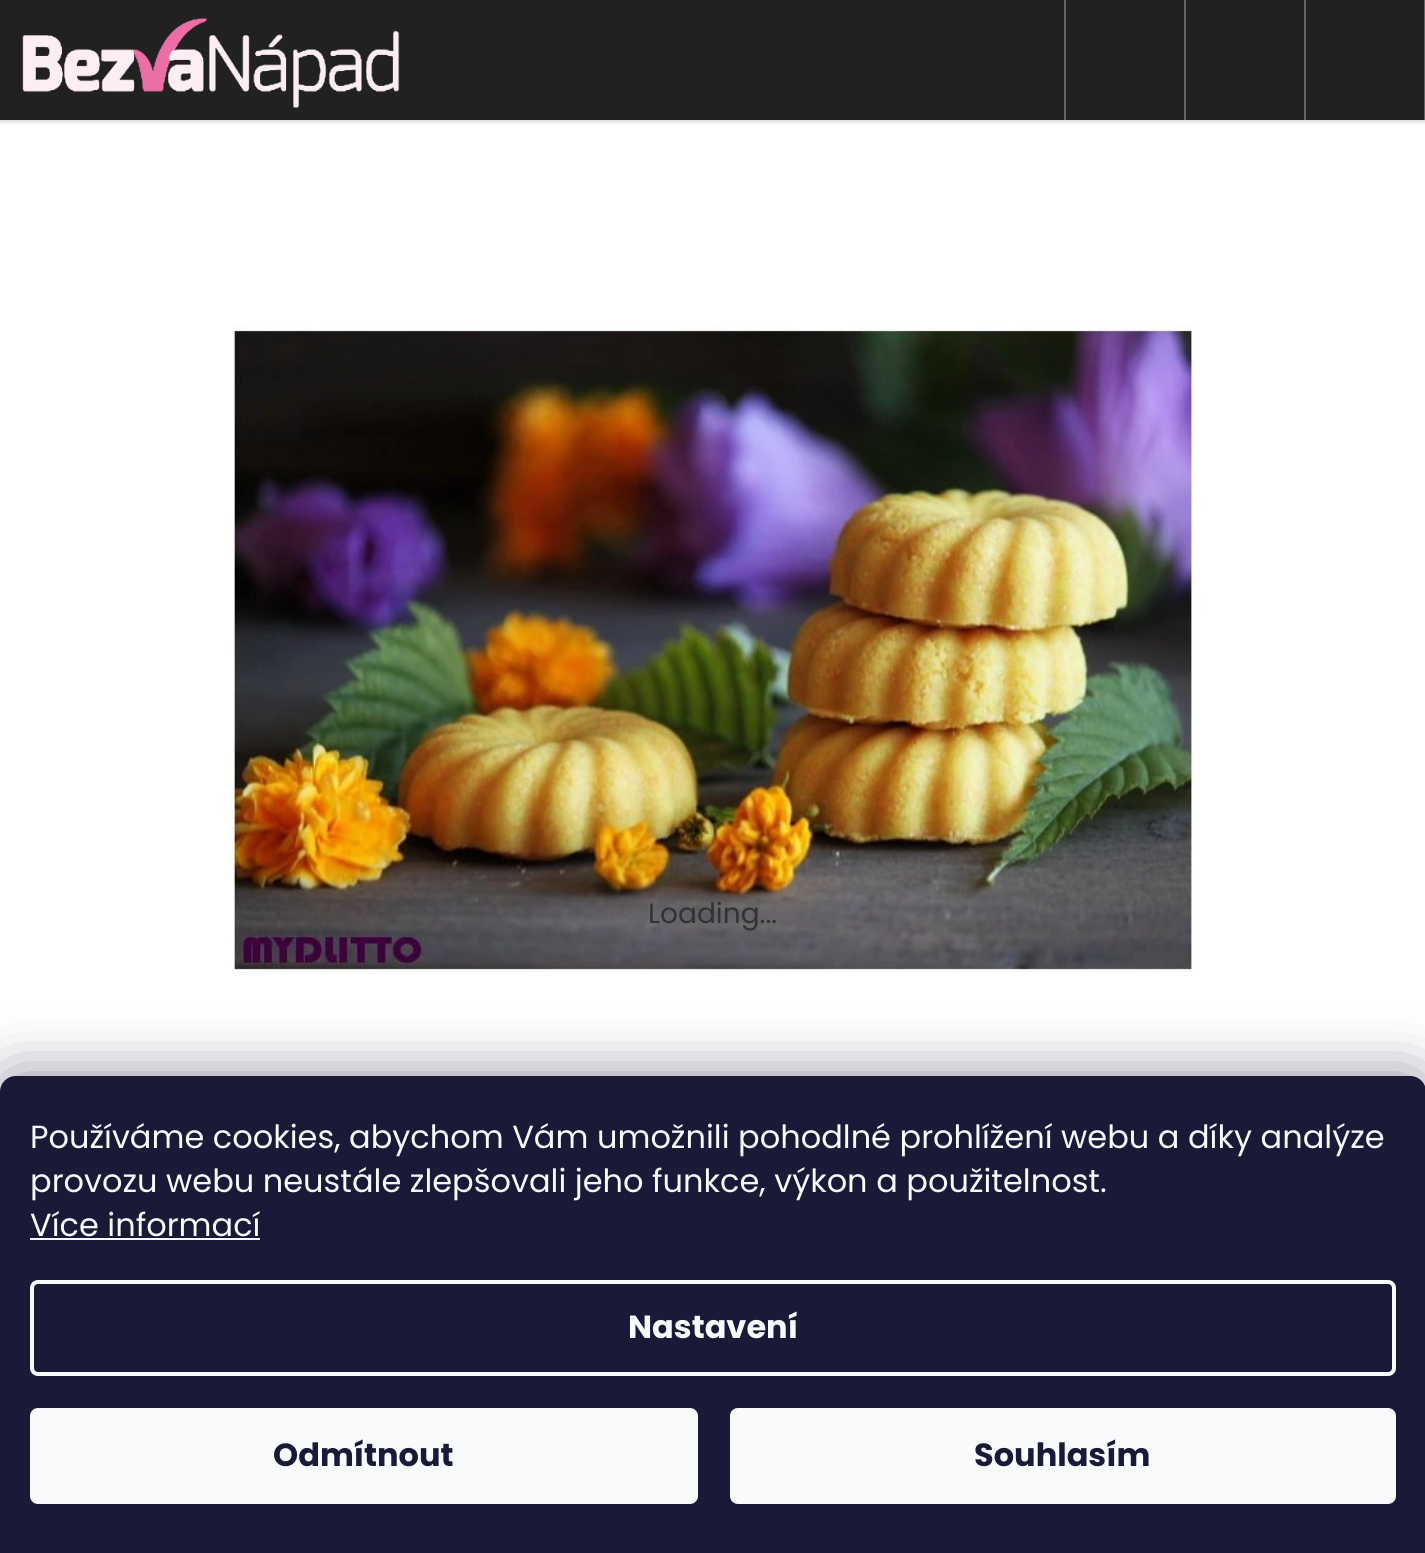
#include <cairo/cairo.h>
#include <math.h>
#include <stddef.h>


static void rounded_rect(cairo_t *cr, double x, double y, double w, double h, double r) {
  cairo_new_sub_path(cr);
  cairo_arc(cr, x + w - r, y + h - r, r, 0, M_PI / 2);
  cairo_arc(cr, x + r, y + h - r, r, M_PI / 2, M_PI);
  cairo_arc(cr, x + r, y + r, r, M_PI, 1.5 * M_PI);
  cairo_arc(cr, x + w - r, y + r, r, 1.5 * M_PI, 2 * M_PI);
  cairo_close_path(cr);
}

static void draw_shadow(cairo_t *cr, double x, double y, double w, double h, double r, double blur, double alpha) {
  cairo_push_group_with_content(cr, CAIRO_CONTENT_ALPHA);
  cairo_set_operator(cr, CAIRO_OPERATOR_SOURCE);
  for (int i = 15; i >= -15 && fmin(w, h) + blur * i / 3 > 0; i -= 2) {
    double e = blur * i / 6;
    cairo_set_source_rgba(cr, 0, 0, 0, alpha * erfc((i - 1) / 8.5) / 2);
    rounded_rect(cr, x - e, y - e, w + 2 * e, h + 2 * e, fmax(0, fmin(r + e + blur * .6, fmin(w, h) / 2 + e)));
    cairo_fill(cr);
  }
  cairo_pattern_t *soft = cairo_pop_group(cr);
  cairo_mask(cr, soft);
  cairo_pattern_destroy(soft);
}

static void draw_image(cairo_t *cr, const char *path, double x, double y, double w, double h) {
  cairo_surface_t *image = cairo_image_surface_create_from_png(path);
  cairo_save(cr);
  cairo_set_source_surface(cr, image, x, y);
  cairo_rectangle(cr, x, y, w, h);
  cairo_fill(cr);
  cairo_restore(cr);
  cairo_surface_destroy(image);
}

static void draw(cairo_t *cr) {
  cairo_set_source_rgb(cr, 1, 1, 1);
  cairo_paint(cr);
  cairo_set_source_rgb(cr, 0, 0, 0);
  draw_shadow(cr, 0, 2, 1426, 120, 0, 2, 0.16);
  cairo_set_source_rgb(cr, 33 / 255.0, 33 / 255.0, 33 / 255.0);
  cairo_rectangle(cr, 0, 0, 1424, 120);
  cairo_fill(cr);
  draw_image(cr, "images/1.png", 22, 18, 378, 90);
  cairo_set_source_rgb(cr, 100 / 255.0, 100 / 255.0, 100 / 255.0);
  cairo_rectangle(cr, 1424, 0, 1, 120);
  cairo_fill(cr);
  cairo_rectangle(cr, 1064, 0, 2, 120);
  cairo_fill(cr);
  cairo_rectangle(cr, 1184, 0, 2, 120);
  cairo_fill(cr);
  cairo_rectangle(cr, 1304, 0, 2, 120);
  cairo_fill(cr);
  draw_image(cr, "images/2.png", 223, 323, 979, 653);
  cairo_set_source_rgb(cr, 27 / 255.0, 25 / 255.0, 57 / 255.0);
  draw_shadow(cr, 0, 1076, 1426, 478, 16, 30, 0.5);
  cairo_set_source_rgb(cr, 26 / 255.0, 25 / 255.0, 55 / 255.0);
  cairo_new_path(cr);
  cairo_move_to(cr, 16, 1076);
  cairo_line_to(cr, 1410, 1076);
  cairo_curve_to(cr, 1419, 1076, 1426, 1083, 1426, 1092);
  cairo_line_to(cr, 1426, 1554);
  cairo_line_to(cr, 0, 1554);
  cairo_line_to(cr, 0, 1092);
  cairo_curve_to(cr, 0, 1083, 7, 1076, 16, 1076);
  cairo_close_path(cr);
  cairo_fill(cr);
  cairo_set_source_rgb(cr, 248 / 255.0, 250 / 255.0, 251 / 255.0);
  cairo_rectangle(cr, 30, 1238, 230, 2);
  cairo_fill(cr);
  rounded_rect(cr, 32, 1282, 1362, 92, 6);
  cairo_set_line_width(cr, 4);
  cairo_stroke(cr);
  rounded_rect(cr, 30, 1408, 668, 96, 8);
  cairo_fill(cr);
  rounded_rect(cr, 730, 1408, 666, 96, 8);
  cairo_fill(cr);
  cairo_select_font_face(cr, "Poppins", CAIRO_FONT_SLANT_NORMAL, CAIRO_FONT_WEIGHT_NORMAL);
  cairo_set_font_size(cr, 28);
  cairo_set_source_rgb(cr, 50 / 255.0, 49 / 255.0, 51 / 255.0);
  cairo_move_to(cr, 648, 923);
  cairo_show_text(cr, "Loading...");
  cairo_set_font_size(cr, 32);
  cairo_set_source_rgb(cr, 248 / 255.0, 250 / 255.0, 251 / 255.0);
  cairo_move_to(cr, 30, 1148);
  cairo_show_text(cr, "Používáme cookies, abychom Vám umožnili pohodlné prohlížení webu a díky analýze");
  cairo_move_to(cr, 30, 1192);
  cairo_show_text(cr, "provozu webu neustále zlepšovali jeho funkce, výkon a použitelnost.");
  cairo_move_to(cr, 30, 1236);
  cairo_show_text(cr, "Více informací");
  cairo_select_font_face(cr, "Poppins", CAIRO_FONT_SLANT_NORMAL, CAIRO_FONT_WEIGHT_BOLD);
  cairo_move_to(cr, 628, 1338);
  cairo_show_text(cr, "Nastavení");
  cairo_set_source_rgb(cr, 26 / 255.0, 25 / 255.0, 55 / 255.0);
  cairo_move_to(cr, 273, 1466);
  cairo_show_text(cr, "Odmítnout");
  cairo_move_to(cr, 974, 1466);
  cairo_show_text(cr, "Souhlasím");
}

int main(void) {
  cairo_surface_t *surface = cairo_image_surface_create(CAIRO_FORMAT_RGB24, 1425, 1553);
  cairo_t *cr = cairo_create(surface);
  cairo_font_options_t *options = cairo_font_options_create();
  cairo_font_options_set_hint_metrics(options, CAIRO_HINT_METRICS_OFF);
  cairo_font_options_set_hint_style(options, CAIRO_HINT_STYLE_NONE);
  cairo_set_font_options(cr, options);
  cairo_set_miter_limit(cr, 4);
  draw(cr);
  cairo_surface_write_to_png(surface, "out.png");
  cairo_font_options_destroy(options);
  cairo_destroy(cr);
  cairo_surface_destroy(surface);
  return 0;
}
